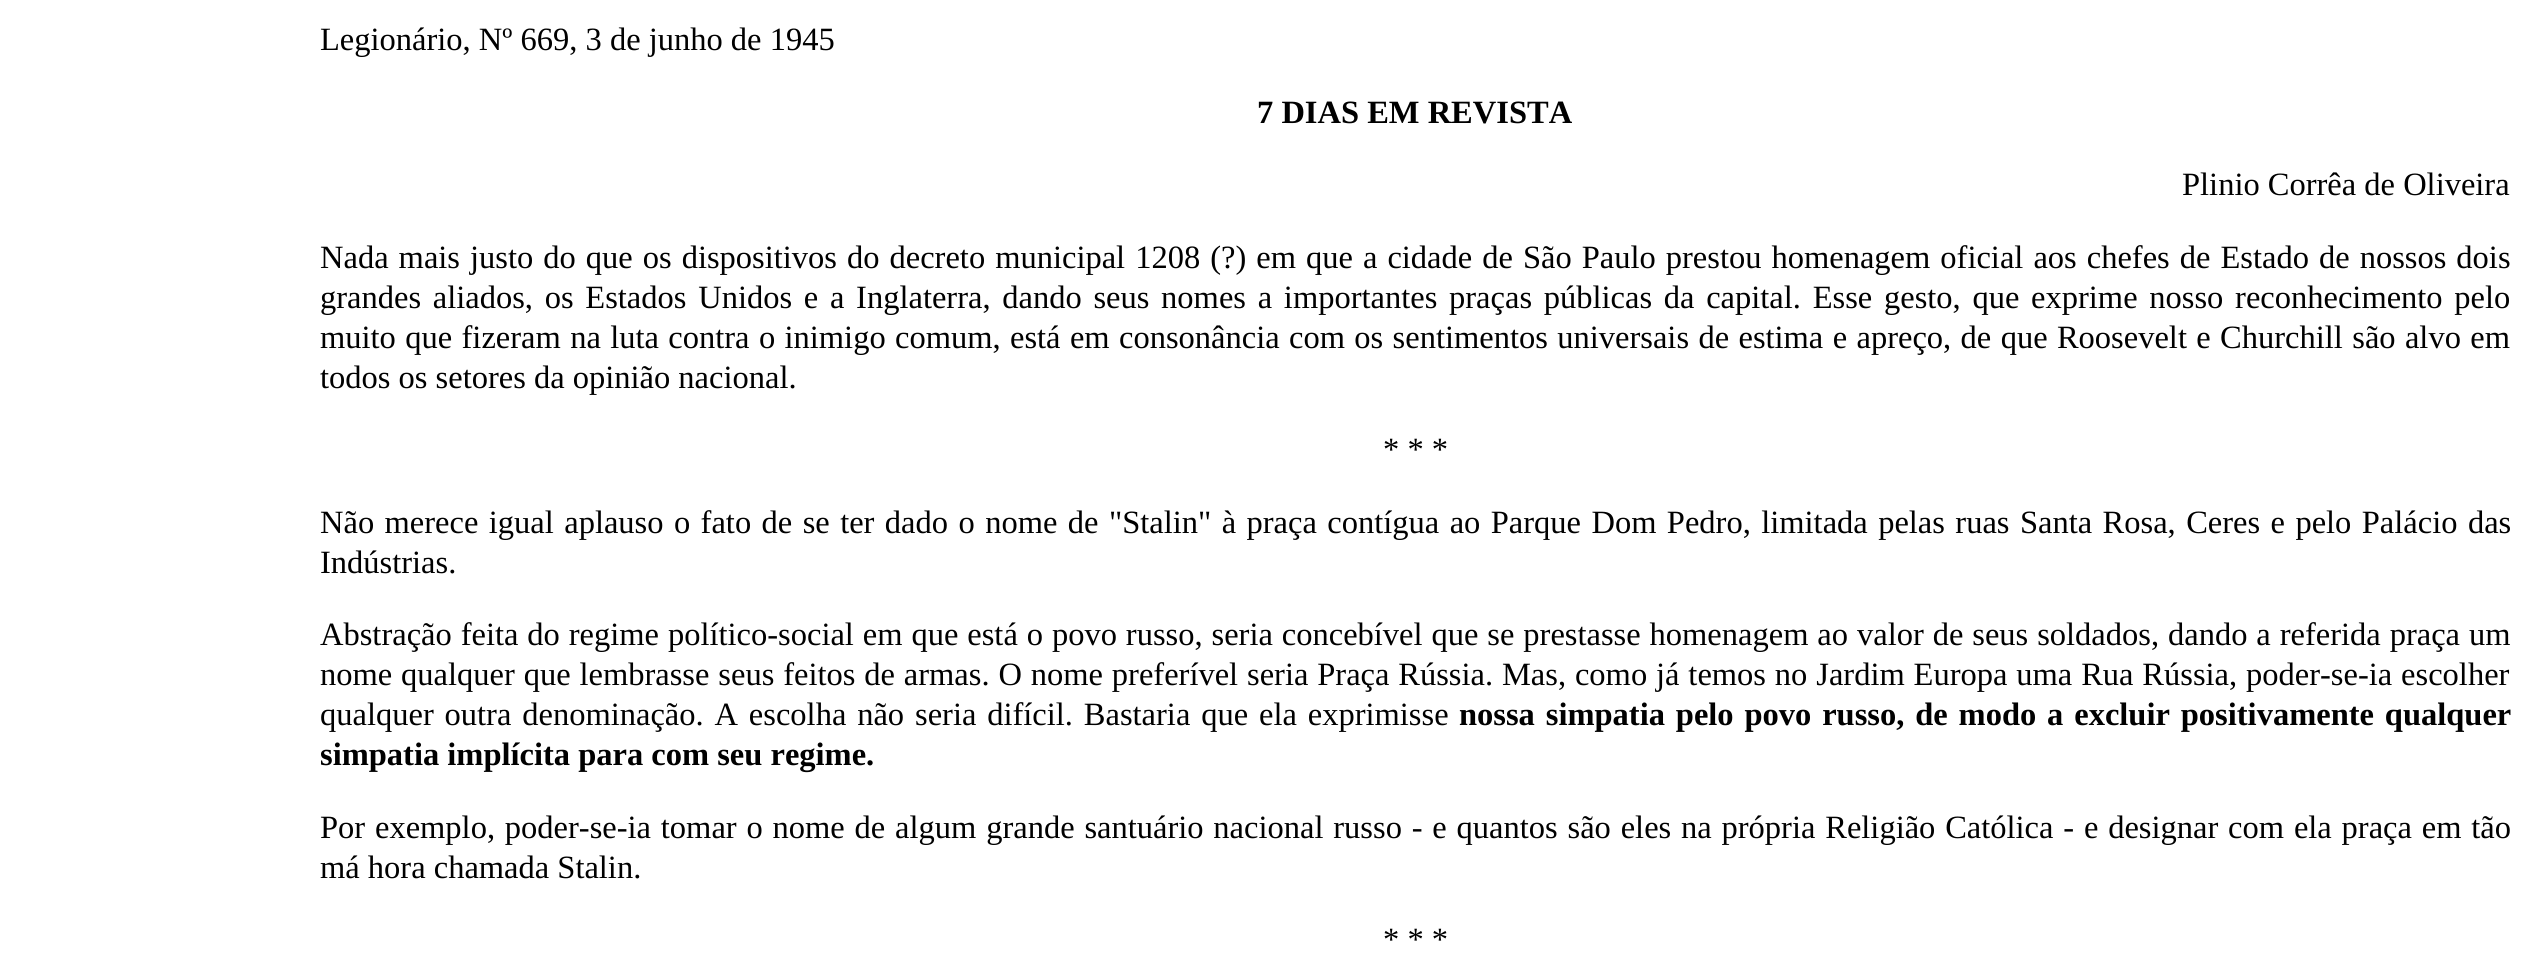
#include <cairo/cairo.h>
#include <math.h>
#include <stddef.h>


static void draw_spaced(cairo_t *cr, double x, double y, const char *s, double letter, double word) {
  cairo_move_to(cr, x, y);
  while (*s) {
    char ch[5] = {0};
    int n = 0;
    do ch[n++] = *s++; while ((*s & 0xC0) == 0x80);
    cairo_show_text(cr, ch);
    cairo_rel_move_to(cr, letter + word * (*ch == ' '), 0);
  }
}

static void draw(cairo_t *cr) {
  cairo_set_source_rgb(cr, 1, 1, 1);
  cairo_paint(cr);
  cairo_select_font_face(cr, "Liberation Serif", CAIRO_FONT_SLANT_NORMAL, CAIRO_FONT_WEIGHT_NORMAL);
  cairo_set_font_size(cr, 32.5);
  cairo_set_source_rgb(cr, 0, 0, 0);
  cairo_move_to(cr, 320, 50);
  cairo_show_text(cr, "Legionário, Nº 669, 3 de junho de 1945");
  cairo_select_font_face(cr, "Liberation Serif", CAIRO_FONT_SLANT_NORMAL, CAIRO_FONT_WEIGHT_BOLD);
  cairo_move_to(cr, 1257, 123);
  cairo_show_text(cr, "7 DIAS EM REVISTA");
  cairo_select_font_face(cr, "Liberation Serif", CAIRO_FONT_SLANT_NORMAL, CAIRO_FONT_WEIGHT_NORMAL);
  cairo_move_to(cr, 2182, 195);
  cairo_show_text(cr, "Plinio Corrêa de Oliveira");
  draw_spaced(cr, 320, 268, "Nada mais justo do que os dispositivos do decreto municipal 1208 (?) em que a cidade de São Paulo prestou homenagem oficial aos chefes de Estado de nossos dois", 0, 1.9);
  draw_spaced(cr, 320, 308, "grandes aliados, os Estados Unidos e a Inglaterra, dando seus nomes a importantes praças públicas da capital. Esse gesto, que exprime nosso reconhecimento pelo", 0, 3.6);
  draw_spaced(cr, 320, 348, "muito que fizeram na luta contra o inimigo comum, está em consonância com os sentimentos universais de estima e apreço, de que Roosevelt e Churchill são alvo em", 0, 1.25);
  cairo_move_to(cr, 320, 388);
  cairo_show_text(cr, "todos os setores da opinião nacional.");
  cairo_move_to(cr, 1383, 460);
  cairo_show_text(cr, "* * *");
  draw_spaced(cr, 320, 533, "Não merece igual aplauso o fato de se ter dado o nome de \"Stalin\" à praça contígua ao Parque Dom Pedro, limitada pelas ruas Santa Rosa, Ceres e pelo Palácio das", 0, 2.3);
  cairo_move_to(cr, 320, 573);
  cairo_show_text(cr, "Indústrias.");
  draw_spaced(cr, 320, 645, "Abstração feita do regime político-social em que está o povo russo, seria concebível que se prestasse homenagem ao valor de seus soldados, dando a referida praça um", 0, 0.8);
  draw_spaced(cr, 320, 685, "nome qualquer que lembrasse seus feitos de armas. O nome preferível seria Praça Rússia. Mas, como já temos no Jardim Europa uma Rua Rússia, poder-se-ia escolher", 0, 0.75);
  draw_spaced(cr, 320, 725, "qualquer outra denominação. A escolha não seria difícil. Bastaria que ela exprimisse", 0, 2.75);
  cairo_select_font_face(cr, "Liberation Serif", CAIRO_FONT_SLANT_NORMAL, CAIRO_FONT_WEIGHT_BOLD);
  draw_spaced(cr, 1459, 725, "nossa simpatia pelo povo russo, de modo a excluir positivamente qualquer", 0, 2.75);
  cairo_move_to(cr, 320, 765);
  cairo_show_text(cr, "simpatia implícita para com seu regime.");
  cairo_select_font_face(cr, "Liberation Serif", CAIRO_FONT_SLANT_NORMAL, CAIRO_FONT_WEIGHT_NORMAL);
  draw_spaced(cr, 320, 838, "Por exemplo, poder-se-ia tomar o nome de algum grande santuário nacional russo - e quantos são eles na própria Religião Católica - e designar com ela praça em tão", 0, 1.7);
  cairo_move_to(cr, 320, 878);
  cairo_show_text(cr, "má hora chamada Stalin.");
  cairo_move_to(cr, 1383, 950);
  cairo_show_text(cr, "* * *");
}

int main(void) {
  cairo_surface_t *surface = cairo_image_surface_create(CAIRO_FORMAT_RGB24, 2530, 974);
  cairo_t *cr = cairo_create(surface);
  cairo_font_options_t *options = cairo_font_options_create();
  cairo_font_options_set_hint_metrics(options, CAIRO_HINT_METRICS_OFF);
  cairo_font_options_set_hint_style(options, CAIRO_HINT_STYLE_NONE);
  cairo_set_font_options(cr, options);
  cairo_set_miter_limit(cr, 4);
  draw(cr);
  cairo_surface_write_to_png(surface, "out.png");
  cairo_font_options_destroy(options);
  cairo_destroy(cr);
  cairo_surface_destroy(surface);
  return 0;
}
